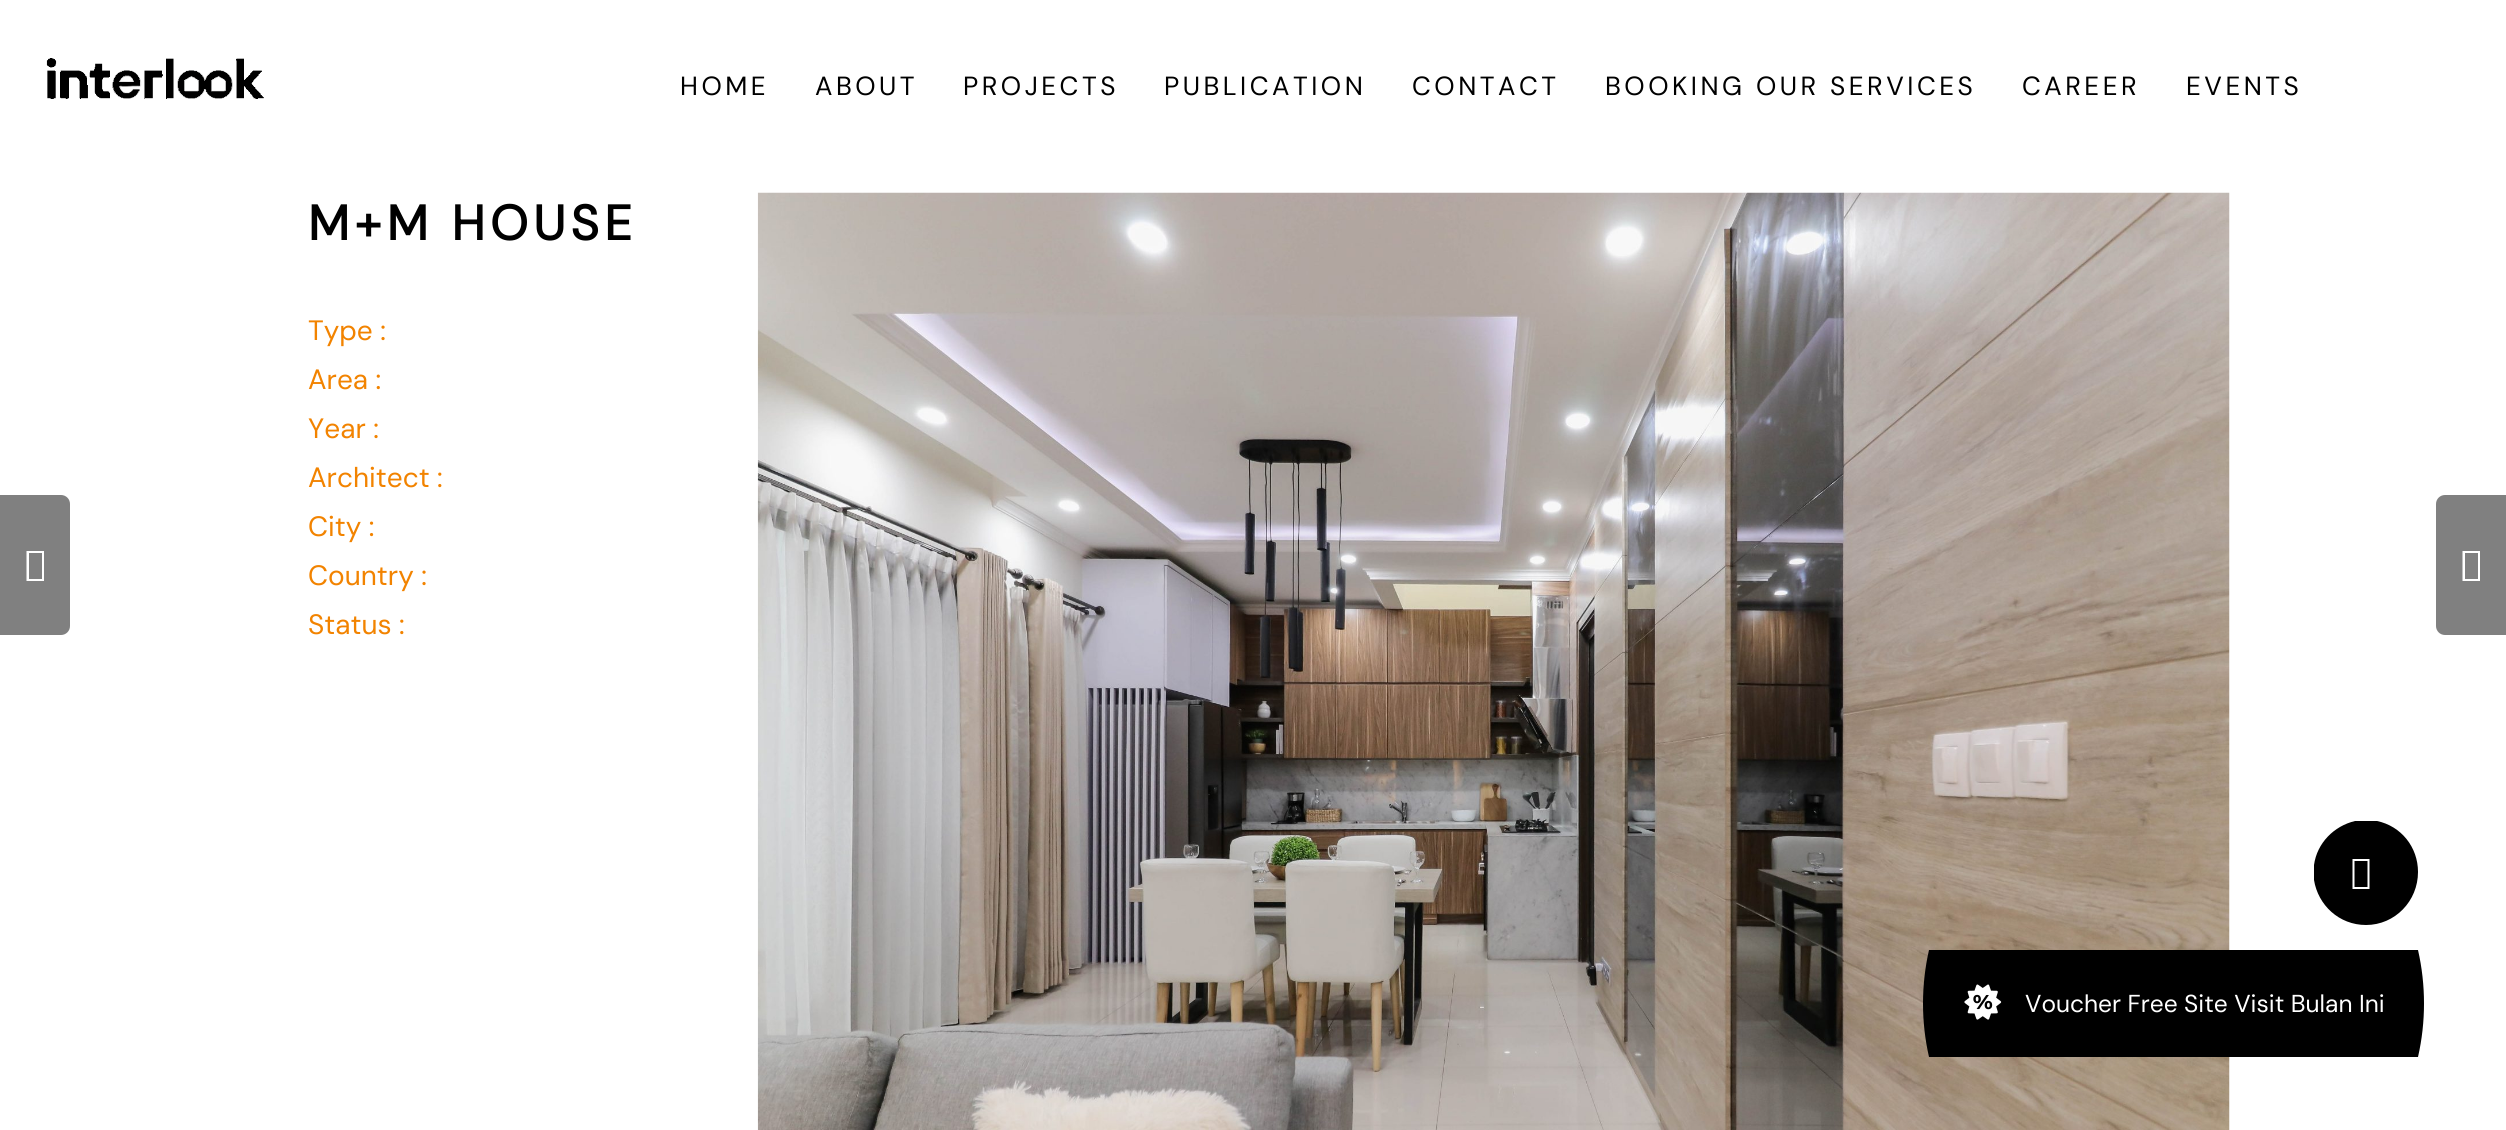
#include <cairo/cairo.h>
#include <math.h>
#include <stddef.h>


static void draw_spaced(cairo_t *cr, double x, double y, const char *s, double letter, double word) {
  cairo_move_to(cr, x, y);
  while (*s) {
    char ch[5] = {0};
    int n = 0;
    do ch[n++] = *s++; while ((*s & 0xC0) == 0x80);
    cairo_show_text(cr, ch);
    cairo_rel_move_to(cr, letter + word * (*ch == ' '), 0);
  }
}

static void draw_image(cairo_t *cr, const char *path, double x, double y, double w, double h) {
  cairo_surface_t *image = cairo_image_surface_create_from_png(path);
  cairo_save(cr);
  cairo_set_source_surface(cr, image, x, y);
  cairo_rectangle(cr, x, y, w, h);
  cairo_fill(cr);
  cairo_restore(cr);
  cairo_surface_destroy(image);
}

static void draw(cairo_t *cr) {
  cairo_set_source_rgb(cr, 1, 1, 1);
  cairo_paint(cr);
  draw_image(cr, "images/1.png", 46, 58, 218, 41);
  cairo_set_source_rgb(cr, 128 / 255.0, 128 / 255.0, 128 / 255.0);
  cairo_new_path(cr);
  cairo_move_to(cr, 0, 495);
  cairo_line_to(cr, 61, 495);
  cairo_curve_to(cr, 66, 495, 70, 499, 70, 504);
  cairo_line_to(cr, 70, 626);
  cairo_curve_to(cr, 70, 631, 66, 635, 61, 635);
  cairo_line_to(cr, 0, 635);
  cairo_close_path(cr);
  cairo_fill(cr);
  cairo_set_source_rgb(cr, 1, 1, 1);
  cairo_new_path(cr);
  cairo_move_to(cr, 26.5, 581);
  cairo_line_to(cr, 26.5, 551);
  cairo_line_to(cr, 44, 551);
  cairo_line_to(cr, 44, 581);
  cairo_close_path(cr);
  cairo_move_to(cr, 29, 579);
  cairo_line_to(cr, 42, 579);
  cairo_line_to(cr, 42, 553);
  cairo_line_to(cr, 29, 553);
  cairo_close_path(cr);
  cairo_fill(cr);
  draw_image(cr, "images/2.png", 757, 192, 1473, 938);
  cairo_set_source_rgb(cr, 128 / 255.0, 128 / 255.0, 128 / 255.0);
  cairo_new_path(cr);
  cairo_move_to(cr, 2445, 495);
  cairo_line_to(cr, 2506, 495);
  cairo_line_to(cr, 2506, 635);
  cairo_line_to(cr, 2445, 635);
  cairo_curve_to(cr, 2440, 635, 2436, 631, 2436, 626);
  cairo_line_to(cr, 2436, 504);
  cairo_curve_to(cr, 2436, 499, 2440, 495, 2445, 495);
  cairo_close_path(cr);
  cairo_fill(cr);
  cairo_set_source_rgb(cr, 1, 1, 1);
  cairo_new_path(cr);
  cairo_move_to(cr, 2462.5, 581);
  cairo_line_to(cr, 2462.5, 551);
  cairo_line_to(cr, 2480, 551);
  cairo_line_to(cr, 2480, 581);
  cairo_close_path(cr);
  cairo_move_to(cr, 2465, 579);
  cairo_line_to(cr, 2478, 579);
  cairo_line_to(cr, 2478, 553);
  cairo_line_to(cr, 2465, 553);
  cairo_close_path(cr);
  cairo_fill(cr);
  cairo_set_source_rgb(cr, 0, 0, 0);
  cairo_new_path(cr);
  cairo_move_to(cr, 2314, 865);
  cairo_curve_to(cr, 2317, 843, 2334, 826, 2355, 821);
  cairo_line_to(cr, 2377, 821);
  cairo_curve_to(cr, 2401, 826, 2418, 847, 2418, 872);
  cairo_curve_to(cr, 2418, 901, 2395, 925, 2366, 925);
  cairo_curve_to(cr, 2339, 925, 2318, 905, 2314, 880);
  cairo_close_path(cr);
  cairo_fill(cr);
  cairo_set_source_rgb(cr, 1, 1, 1);
  cairo_new_path(cr);
  cairo_move_to(cr, 2352.5, 889);
  cairo_line_to(cr, 2352.5, 859);
  cairo_line_to(cr, 2369.5, 859);
  cairo_line_to(cr, 2369.5, 889);
  cairo_close_path(cr);
  cairo_move_to(cr, 2354.5, 887);
  cairo_line_to(cr, 2367.5, 887);
  cairo_line_to(cr, 2367.5, 861);
  cairo_line_to(cr, 2354.5, 861);
  cairo_close_path(cr);
  cairo_fill(cr);
  cairo_set_source_rgb(cr, 0, 0, 0);
  cairo_new_path(cr);
  cairo_move_to(cr, 1929, 1057);
  cairo_curve_to(cr, 1921, 1022, 1921, 985, 1929, 950);
  cairo_line_to(cr, 2418, 950);
  cairo_curve_to(cr, 2426, 985, 2426, 1022, 2418, 1057);
  cairo_close_path(cr);
  cairo_fill(cr);
  draw_image(cr, "images/3.png", 1964, 984, 38, 36);
  cairo_select_font_face(cr, "DM Sans", CAIRO_FONT_SLANT_NORMAL, CAIRO_FONT_WEIGHT_NORMAL);
  cairo_set_font_size(cr, 26.25);
  draw_spaced(cr, 680, 95, "HOME", 3.5, 0);
  draw_spaced(cr, 815, 95, "ABOUT", 3.5, 0);
  draw_spaced(cr, 963, 95, "PROJECTS", 3.5, 0);
  draw_spaced(cr, 1164, 95, "PUBLICATION", 3.5, 0);
  draw_spaced(cr, 1412, 95, "CONTACT", 3.5, 0);
  draw_spaced(cr, 1605, 95, "BOOKING OUR SERVICES", 3.5, 0);
  draw_spaced(cr, 2022, 95, "CAREER", 3.5, 0);
  draw_spaced(cr, 2186, 95, "EVENTS", 3.5, 0);
  cairo_select_font_face(cr, "DM Sans", CAIRO_FONT_SLANT_NORMAL, CAIRO_FONT_WEIGHT_BOLD);
  cairo_set_font_size(cr, 49);
  draw_spaced(cr, 308, 240, "M+M HOUSE", 5.25, 0);
  cairo_select_font_face(cr, "DM Sans", CAIRO_FONT_SLANT_NORMAL, CAIRO_FONT_WEIGHT_NORMAL);
  cairo_set_font_size(cr, 28);
  cairo_set_source_rgb(cr, 242 / 255.0, 131 / 255.0, 0);
  cairo_move_to(cr, 308, 340);
  cairo_show_text(cr, "Type :");
  cairo_move_to(cr, 308, 389);
  cairo_show_text(cr, "Area :");
  cairo_move_to(cr, 308, 438);
  cairo_show_text(cr, "Year :");
  cairo_move_to(cr, 308, 487);
  cairo_show_text(cr, "Architect :");
  cairo_move_to(cr, 308, 536);
  cairo_show_text(cr, "City :");
  cairo_move_to(cr, 308, 585);
  cairo_show_text(cr, "Country :");
  cairo_move_to(cr, 308, 634);
  cairo_show_text(cr, "Status :");
  cairo_set_font_size(cr, 24.5);
  cairo_set_source_rgb(cr, 1, 1, 1);
  cairo_move_to(cr, 2025, 1012);
  cairo_show_text(cr, "Voucher Free Site Visit Bulan Ini");
}

int main(void) {
  cairo_surface_t *surface = cairo_image_surface_create(CAIRO_FORMAT_RGB24, 2506, 1130);
  cairo_t *cr = cairo_create(surface);
  cairo_font_options_t *options = cairo_font_options_create();
  cairo_font_options_set_hint_metrics(options, CAIRO_HINT_METRICS_OFF);
  cairo_font_options_set_hint_style(options, CAIRO_HINT_STYLE_NONE);
  cairo_set_font_options(cr, options);
  cairo_set_miter_limit(cr, 4);
  draw(cr);
  cairo_surface_write_to_png(surface, "out.png");
  cairo_font_options_destroy(options);
  cairo_destroy(cr);
  cairo_surface_destroy(surface);
  return 0;
}
